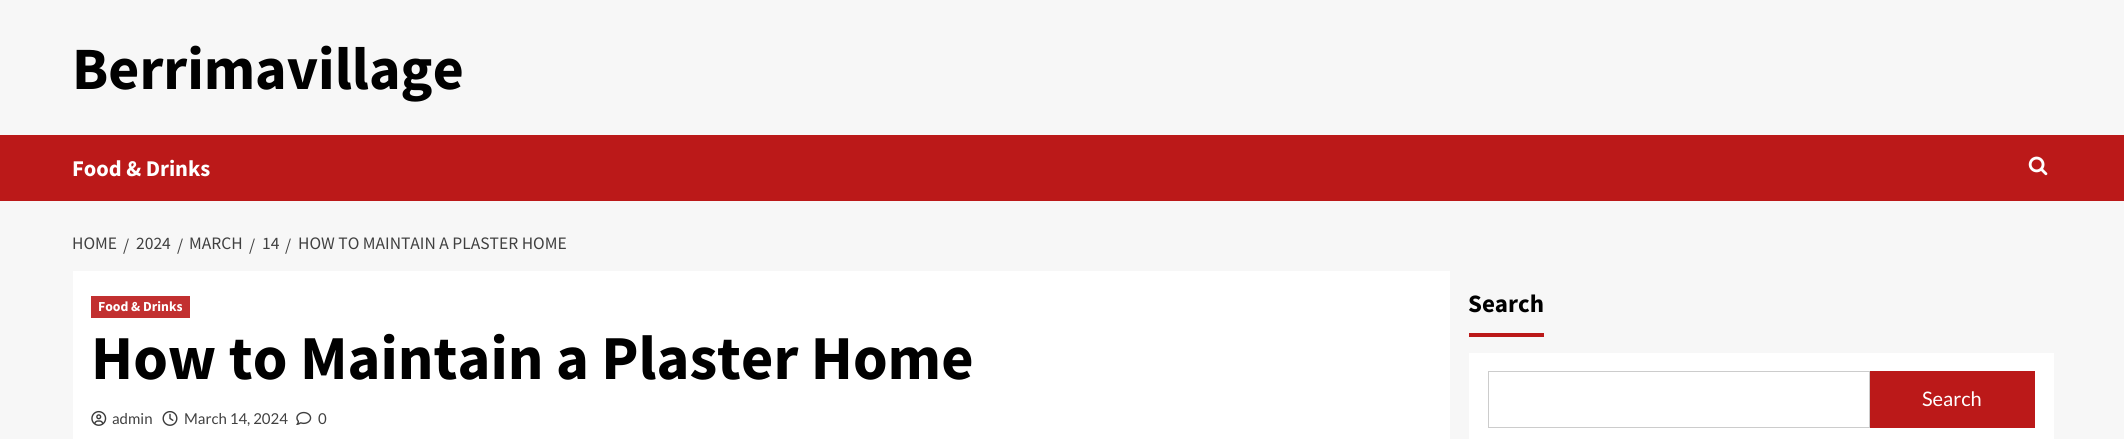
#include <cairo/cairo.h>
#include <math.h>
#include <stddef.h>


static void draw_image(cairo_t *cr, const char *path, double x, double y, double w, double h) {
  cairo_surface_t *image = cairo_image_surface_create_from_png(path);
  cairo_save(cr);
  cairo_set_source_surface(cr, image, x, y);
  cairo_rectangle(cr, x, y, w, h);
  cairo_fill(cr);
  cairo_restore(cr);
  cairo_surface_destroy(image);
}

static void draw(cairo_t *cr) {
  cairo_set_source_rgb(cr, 247 / 255.0, 247 / 255.0, 247 / 255.0);
  cairo_paint(cr);
  cairo_set_source_rgb(cr, 187 / 255.0, 25 / 255.0, 25 / 255.0);
  cairo_rectangle(cr, 0, 135, 2124, 66);
  cairo_fill(cr);
  draw_image(cr, "images/1.png", 2028, 156, 20, 20);
  cairo_set_source_rgb(cr, 1, 1, 1);
  cairo_rectangle(cr, 73, 271, 1377, 168);
  cairo_fill(cr);
  cairo_set_source_rgb(cr, 194 / 255.0, 48 / 255.0, 48 / 255.0);
  cairo_rectangle(cr, 91, 296, 99, 22);
  cairo_fill(cr);
  draw_image(cr, "images/2.png", 91, 410, 16, 16);
  draw_image(cr, "images/3.png", 162, 411, 16, 15);
  draw_image(cr, "images/4.png", 296, 411, 16, 14);
  cairo_set_source_rgb(cr, 187 / 255.0, 25 / 255.0, 25 / 255.0);
  cairo_rectangle(cr, 1469, 333, 75, 4);
  cairo_fill(cr);
  cairo_set_source_rgb(cr, 1, 1, 1);
  cairo_rectangle(cr, 1469, 353, 585, 86);
  cairo_fill(cr);
  cairo_rectangle(cr, 1488.5, 371.5, 381, 56);
  cairo_set_source_rgb(cr, 204 / 255.0, 204 / 255.0, 204 / 255.0);
  cairo_set_line_width(cr, 1);
  cairo_stroke(cr);
  cairo_set_source_rgb(cr, 187 / 255.0, 25 / 255.0, 25 / 255.0);
  cairo_rectangle(cr, 1870, 371, 165, 57);
  cairo_fill(cr);
  cairo_select_font_face(cr, "Source Sans Pro", CAIRO_FONT_SLANT_NORMAL, CAIRO_FONT_WEIGHT_BOLD);
  cairo_set_font_size(cr, 60);
  cairo_set_source_rgb(cr, 0, 0, 0);
  cairo_move_to(cr, 72, 89);
  cairo_show_text(cr, "Berrimavillage");
  cairo_set_font_size(cr, 22.5);
  cairo_set_source_rgb(cr, 1, 1, 1);
  cairo_move_to(cr, 72, 176);
  cairo_show_text(cr, "Food & Drinks");
  cairo_select_font_face(cr, "Source Sans Pro", CAIRO_FONT_SLANT_NORMAL, CAIRO_FONT_WEIGHT_NORMAL);
  cairo_set_font_size(cr, 17.5);
  cairo_set_source_rgb(cr, 64 / 255.0, 64 / 255.0, 64 / 255.0);
  cairo_move_to(cr, 72, 249);
  cairo_show_text(cr, "HOME");
  cairo_move_to(cr, 123, 251);
  cairo_show_text(cr, "/");
  cairo_move_to(cr, 136, 249);
  cairo_show_text(cr, "2024");
  cairo_move_to(cr, 177, 251);
  cairo_show_text(cr, "/");
  cairo_move_to(cr, 189, 249);
  cairo_show_text(cr, "MARCH");
  cairo_move_to(cr, 249, 251);
  cairo_show_text(cr, "/");
  cairo_move_to(cr, 262, 249);
  cairo_show_text(cr, "14");
  cairo_move_to(cr, 285, 251);
  cairo_show_text(cr, "/");
  cairo_move_to(cr, 298, 249);
  cairo_show_text(cr, "HOW TO MAINTAIN A PLASTER HOME");
  cairo_select_font_face(cr, "Source Sans Pro", CAIRO_FONT_SLANT_NORMAL, CAIRO_FONT_WEIGHT_BOLD);
  cairo_set_font_size(cr, 13.75);
  cairo_set_source_rgb(cr, 1, 1, 1);
  cairo_move_to(cr, 98, 311);
  cairo_show_text(cr, "Food & Drinks");
  cairo_set_font_size(cr, 62.5);
  cairo_set_source_rgb(cr, 0, 0, 0);
  cairo_move_to(cr, 91, 379);
  cairo_show_text(cr, "How to Maintain a Plaster Home");
  cairo_select_font_face(cr, "Lato", CAIRO_FONT_SLANT_NORMAL, CAIRO_FONT_WEIGHT_NORMAL);
  cairo_set_font_size(cr, 15);
  cairo_set_source_rgb(cr, 64 / 255.0, 64 / 255.0, 64 / 255.0);
  cairo_move_to(cr, 112, 424);
  cairo_show_text(cr, "admin");
  cairo_move_to(cr, 184, 424);
  cairo_show_text(cr, "March 14, 2024");
  cairo_move_to(cr, 318, 424);
  cairo_show_text(cr, "0");
  cairo_select_font_face(cr, "Source Sans Pro", CAIRO_FONT_SLANT_NORMAL, CAIRO_FONT_WEIGHT_BOLD);
  cairo_set_font_size(cr, 25);
  cairo_set_source_rgb(cr, 0, 0, 0);
  cairo_move_to(cr, 1468, 312);
  cairo_show_text(cr, "Search");
  cairo_select_font_face(cr, "Lato", CAIRO_FONT_SLANT_NORMAL, CAIRO_FONT_WEIGHT_NORMAL);
  cairo_set_font_size(cr, 20);
  cairo_set_source_rgb(cr, 1, 1, 1);
  cairo_move_to(cr, 1922, 406);
  cairo_show_text(cr, "Search");
}

int main(void) {
  cairo_surface_t *surface = cairo_image_surface_create(CAIRO_FORMAT_RGB24, 2124, 439);
  cairo_t *cr = cairo_create(surface);
  cairo_font_options_t *options = cairo_font_options_create();
  cairo_font_options_set_hint_metrics(options, CAIRO_HINT_METRICS_OFF);
  cairo_font_options_set_hint_style(options, CAIRO_HINT_STYLE_NONE);
  cairo_set_font_options(cr, options);
  cairo_set_miter_limit(cr, 4);
  draw(cr);
  cairo_surface_write_to_png(surface, "out.png");
  cairo_font_options_destroy(options);
  cairo_destroy(cr);
  cairo_surface_destroy(surface);
  return 0;
}
